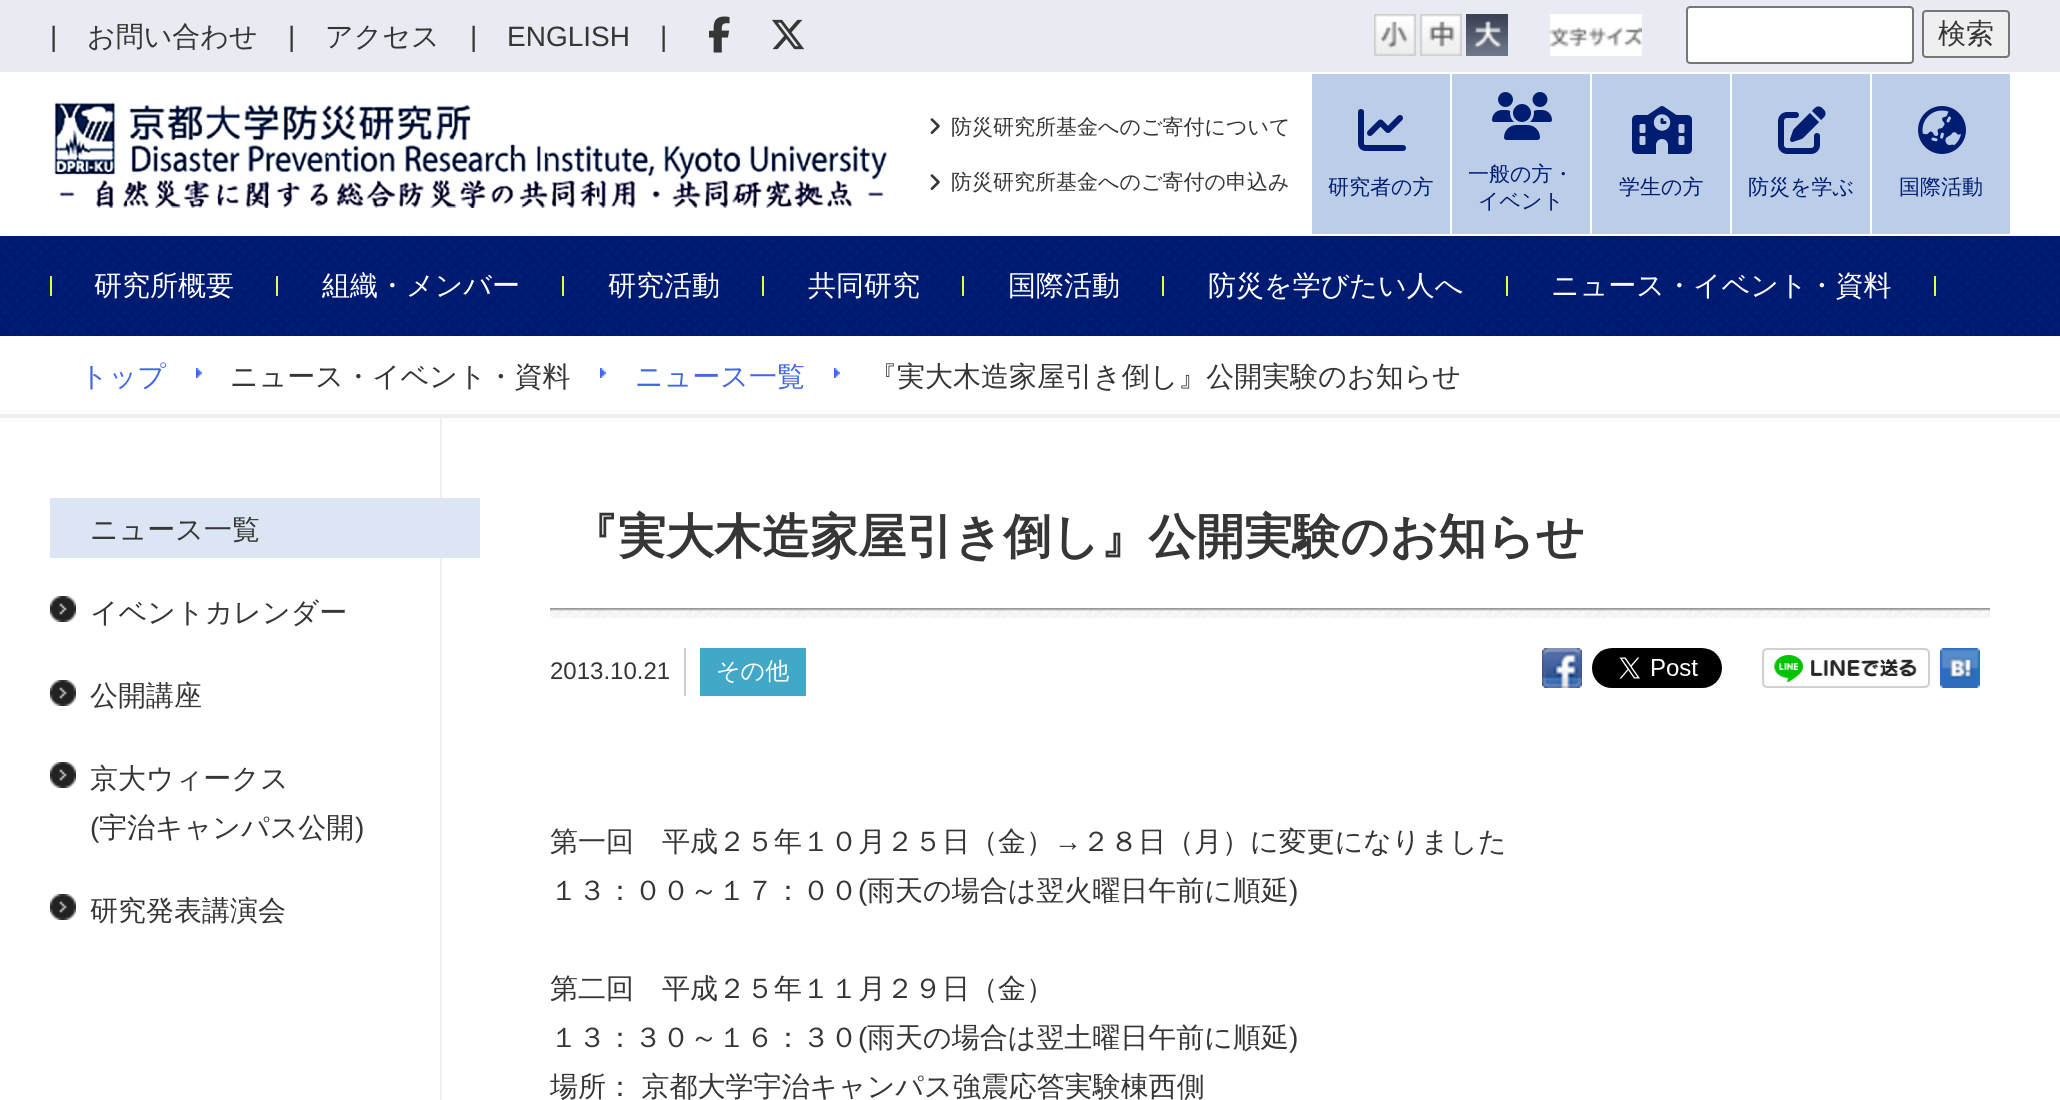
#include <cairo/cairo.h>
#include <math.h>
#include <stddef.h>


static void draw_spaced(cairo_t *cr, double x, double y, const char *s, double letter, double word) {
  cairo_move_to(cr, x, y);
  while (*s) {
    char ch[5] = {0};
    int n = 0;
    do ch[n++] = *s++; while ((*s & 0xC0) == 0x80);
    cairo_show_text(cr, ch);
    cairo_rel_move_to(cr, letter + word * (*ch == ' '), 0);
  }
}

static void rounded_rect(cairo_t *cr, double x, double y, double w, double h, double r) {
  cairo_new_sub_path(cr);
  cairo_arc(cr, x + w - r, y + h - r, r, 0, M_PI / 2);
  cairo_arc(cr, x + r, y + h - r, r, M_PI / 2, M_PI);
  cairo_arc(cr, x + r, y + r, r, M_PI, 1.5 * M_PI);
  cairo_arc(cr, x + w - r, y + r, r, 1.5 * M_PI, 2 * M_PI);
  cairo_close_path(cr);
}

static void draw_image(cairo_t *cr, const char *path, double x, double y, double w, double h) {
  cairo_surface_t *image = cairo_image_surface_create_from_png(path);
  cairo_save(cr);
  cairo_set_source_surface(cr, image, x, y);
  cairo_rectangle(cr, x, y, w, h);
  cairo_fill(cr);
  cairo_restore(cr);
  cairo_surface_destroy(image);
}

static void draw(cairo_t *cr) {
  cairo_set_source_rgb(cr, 1, 1, 1);
  cairo_paint(cr);
  cairo_set_source_rgb(cr, 232 / 255.0, 235 / 255.0, 242 / 255.0);
  cairo_rectangle(cr, 0, 0, 2060, 72);
  cairo_fill(cr);
  draw_image(cr, "images/1.png", 1374, 14, 42, 42);
  draw_image(cr, "images/2.png", 1420, 14, 42, 42);
  draw_image(cr, "images/3.png", 1466, 14, 42, 42);
  draw_image(cr, "images/4.png", 1550, 14, 92, 42);
  cairo_set_source_rgb(cr, 1, 1, 1);
  rounded_rect(cr, 1687, 7, 226, 56, 3);
  cairo_fill_preserve(cr);
  cairo_set_source_rgb(cr, 118 / 255.0, 118 / 255.0, 118 / 255.0);
  cairo_stroke(cr);
  cairo_set_source_rgb(cr, 239 / 255.0, 239 / 255.0, 239 / 255.0);
  rounded_rect(cr, 1923, 11, 86, 46, 3);
  cairo_fill_preserve(cr);
  cairo_set_source_rgb(cr, 118 / 255.0, 118 / 255.0, 118 / 255.0);
  cairo_stroke(cr);
  draw_image(cr, "images/5.png", 54, 102, 834, 106);
  draw_image(cr, "images/6.png", 930, 118, 10, 16);
  draw_image(cr, "images/6.png", 930, 174, 10, 16);
  cairo_set_source_rgb(cr, 188 / 255.0, 205 / 255.0, 232 / 255.0);
  cairo_rectangle(cr, 1312, 74, 138, 160);
  cairo_fill(cr);
  draw_image(cr, "images/7.png", 1358, 109, 48, 42);
  cairo_rectangle(cr, 1452, 74, 138, 160);
  cairo_fill(cr);
  draw_image(cr, "images/8.png", 1492, 92, 60, 48);
  cairo_rectangle(cr, 1592, 74, 138, 160);
  cairo_fill(cr);
  draw_image(cr, "images/9.png", 1632, 106, 60, 48);
  cairo_rectangle(cr, 1732, 74, 138, 160);
  cairo_fill(cr);
  draw_image(cr, "images/10.png", 1778, 106, 48, 48);
  cairo_rectangle(cr, 1872, 74, 138, 160);
  cairo_fill(cr);
  draw_image(cr, "images/11.png", 1918, 106, 48, 48);
  draw_image(cr, "images/12.png", 709, 16, 21, 37);
  draw_image(cr, "images/13.png", 772, 19, 33, 31);
  draw_image(cr, "images/14.png", 0, 236, 2060, 100);
  draw_image(cr, "images/15.png", 50, 276, 2, 20);
  draw_image(cr, "images/15.png", 276, 276, 2, 20);
  draw_image(cr, "images/15.png", 562, 276, 2, 20);
  draw_image(cr, "images/15.png", 762, 276, 2, 20);
  draw_image(cr, "images/15.png", 962, 276, 2, 20);
  draw_image(cr, "images/15.png", 1162, 276, 2, 20);
  draw_image(cr, "images/15.png", 1506, 276, 2, 20);
  draw_image(cr, "images/15.png", 1934, 276, 2, 20);
  cairo_set_source_rgb(cr, 238 / 255.0, 238 / 255.0, 238 / 255.0);
  cairo_rectangle(cr, 0, 414, 2060, 4);
  cairo_fill(cr);
  draw_image(cr, "images/16.png", 196, 368, 6, 10);
  draw_image(cr, "images/16.png", 600, 368, 6, 10);
  draw_image(cr, "images/16.png", 834, 368, 6, 10);
  draw_image(cr, "images/17.png", 440, 418, 2, 682);
  cairo_set_source_rgb(cr, 219 / 255.0, 229 / 255.0, 243 / 255.0);
  cairo_rectangle(cr, 50, 498, 430, 60);
  cairo_fill(cr);
  draw_image(cr, "images/18.png", 50, 596, 26, 26);
  draw_image(cr, "images/18.png", 50, 680, 26, 26);
  draw_image(cr, "images/18.png", 50, 762, 26, 26);
  draw_image(cr, "images/18.png", 50, 894, 26, 26);
  draw_image(cr, "images/19.png", 550, 608, 1440, 10);
  cairo_set_source_rgb(cr, 204 / 255.0, 204 / 255.0, 204 / 255.0);
  cairo_rectangle(cr, 684, 648, 2, 48);
  cairo_fill(cr);
  cairo_set_source_rgb(cr, 67 / 255.0, 168 / 255.0, 199 / 255.0);
  cairo_rectangle(cr, 700, 648, 106, 48);
  cairo_fill(cr);
  draw_image(cr, "images/20.png", 1542, 648, 40, 40);
  draw_image(cr, "images/21.png", 1592, 648, 130, 40);
  draw_image(cr, "images/22.png", 1762, 648, 168, 40);
  draw_image(cr, "images/23.png", 1940, 648, 40, 40);
  cairo_select_font_face(cr, "WenQuanYi Zen Hei Medium", CAIRO_FONT_SLANT_NORMAL, CAIRO_FONT_WEIGHT_NORMAL);
  cairo_set_font_size(cr, 28);
  cairo_set_source_rgb(cr, 54 / 255.0, 54 / 255.0, 54 / 255.0);
  cairo_move_to(cr, 1938, 43);
  cairo_show_text(cr, "検索");
  cairo_set_font_size(cr, 21);
  cairo_move_to(cr, 951, 134);
  cairo_show_text(cr, "防災研究所基金へのご寄付について");
  cairo_move_to(cr, 951, 189);
  cairo_show_text(cr, "防災研究所基金へのご寄付の申込み");
  cairo_set_source_rgb(cr, 0, 29 / 255.0, 114 / 255.0);
  cairo_move_to(cr, 1328, 194);
  cairo_show_text(cr, "研究者の方");
  cairo_move_to(cr, 1468, 181);
  cairo_show_text(cr, "一般の方・");
  cairo_move_to(cr, 1478, 208);
  cairo_show_text(cr, "イベント");
  cairo_move_to(cr, 1619, 194);
  cairo_show_text(cr, "学生の方");
  cairo_move_to(cr, 1748, 194);
  cairo_show_text(cr, "防災を学ぶ");
  cairo_move_to(cr, 1899, 194);
  cairo_show_text(cr, "国際活動");
  cairo_select_font_face(cr, "Liberation Sans", CAIRO_FONT_SLANT_NORMAL, CAIRO_FONT_WEIGHT_NORMAL);
  cairo_set_font_size(cr, 28);
  cairo_set_source_rgb(cr, 54 / 255.0, 54 / 255.0, 54 / 255.0);
  cairo_move_to(cr, 50, 46);
  cairo_show_text(cr, "|");
  cairo_select_font_face(cr, "WenQuanYi Zen Hei Medium", CAIRO_FONT_SLANT_NORMAL, CAIRO_FONT_WEIGHT_NORMAL);
  cairo_move_to(cr, 87, 46);
  cairo_show_text(cr, "お問い合わせ");
  cairo_select_font_face(cr, "Liberation Sans", CAIRO_FONT_SLANT_NORMAL, CAIRO_FONT_WEIGHT_NORMAL);
  cairo_move_to(cr, 288, 46);
  cairo_show_text(cr, "|");
  cairo_select_font_face(cr, "WenQuanYi Zen Hei Medium", CAIRO_FONT_SLANT_NORMAL, CAIRO_FONT_WEIGHT_NORMAL);
  cairo_move_to(cr, 325, 46);
  cairo_show_text(cr, "アクセス");
  cairo_select_font_face(cr, "Liberation Sans", CAIRO_FONT_SLANT_NORMAL, CAIRO_FONT_WEIGHT_NORMAL);
  cairo_move_to(cr, 470, 46);
  cairo_show_text(cr, "|");
  cairo_move_to(cr, 507, 46);
  cairo_show_text(cr, "ENGLISH");
  cairo_move_to(cr, 660, 46);
  cairo_show_text(cr, "|");
  cairo_select_font_face(cr, "WenQuanYi Zen Hei Medium", CAIRO_FONT_SLANT_NORMAL, CAIRO_FONT_WEIGHT_NORMAL);
  cairo_set_source_rgb(cr, 1, 1, 1);
  cairo_move_to(cr, 94, 295);
  cairo_show_text(cr, "研究所概要");
  cairo_move_to(cr, 322, 295);
  cairo_show_text(cr, "組織・メンバー");
  cairo_move_to(cr, 608, 295);
  cairo_show_text(cr, "研究活動");
  cairo_move_to(cr, 808, 295);
  cairo_show_text(cr, "共同研究");
  cairo_move_to(cr, 1008, 295);
  cairo_show_text(cr, "国際活動");
  cairo_move_to(cr, 1208, 295);
  cairo_show_text(cr, "防災を学びたい人へ");
  cairo_move_to(cr, 1551, 295);
  cairo_show_text(cr, "ニュース・イベント・資料");
  cairo_set_source_rgb(cr, 67 / 255.0, 103 / 255.0, 229 / 255.0);
  cairo_move_to(cr, 80, 386);
  cairo_show_text(cr, "トップ");
  cairo_set_source_rgb(cr, 54 / 255.0, 54 / 255.0, 54 / 255.0);
  cairo_move_to(cr, 230, 386);
  cairo_show_text(cr, "ニュース・イベント・資料");
  cairo_set_source_rgb(cr, 67 / 255.0, 103 / 255.0, 229 / 255.0);
  cairo_move_to(cr, 635, 386);
  cairo_show_text(cr, "ニュース一覧");
  cairo_set_source_rgb(cr, 54 / 255.0, 54 / 255.0, 54 / 255.0);
  cairo_move_to(cr, 869, 386);
  cairo_show_text(cr, "『実大木造家屋引き倒し』公開実験のお知らせ");
  cairo_move_to(cr, 90, 539);
  cairo_show_text(cr, "ニュース一覧");
  cairo_move_to(cr, 90, 622);
  cairo_show_text(cr, "イベントカレンダー");
  cairo_move_to(cr, 90, 705);
  cairo_show_text(cr, "公開講座");
  cairo_move_to(cr, 90, 788);
  cairo_show_text(cr, "京大ウィークス");
  cairo_select_font_face(cr, "Liberation Sans", CAIRO_FONT_SLANT_NORMAL, CAIRO_FONT_WEIGHT_NORMAL);
  cairo_move_to(cr, 90, 837);
  cairo_show_text(cr, "(");
  cairo_select_font_face(cr, "WenQuanYi Zen Hei Medium", CAIRO_FONT_SLANT_NORMAL, CAIRO_FONT_WEIGHT_NORMAL);
  cairo_move_to(cr, 99, 837);
  cairo_show_text(cr, "宇治キャンパス公開");
  cairo_select_font_face(cr, "Liberation Sans", CAIRO_FONT_SLANT_NORMAL, CAIRO_FONT_WEIGHT_NORMAL);
  cairo_move_to(cr, 355, 837);
  cairo_show_text(cr, ")");
  cairo_select_font_face(cr, "WenQuanYi Zen Hei Medium", CAIRO_FONT_SLANT_NORMAL, CAIRO_FONT_WEIGHT_NORMAL);
  cairo_move_to(cr, 90, 920);
  cairo_show_text(cr, "研究発表講演会");
  cairo_select_font_face(cr, "WenQuanYi Zen Hei", CAIRO_FONT_SLANT_NORMAL, CAIRO_FONT_WEIGHT_BOLD);
  cairo_set_font_size(cr, 48);
  cairo_move_to(cr, 570, 553);
  cairo_show_text(cr, "『実大木造家屋引き倒し』公開実験のお知らせ");
  cairo_select_font_face(cr, "Liberation Sans", CAIRO_FONT_SLANT_NORMAL, CAIRO_FONT_WEIGHT_NORMAL);
  cairo_set_font_size(cr, 24);
  cairo_move_to(cr, 550, 679);
  cairo_show_text(cr, "2013.10.21");
  cairo_select_font_face(cr, "WenQuanYi Zen Hei Medium", CAIRO_FONT_SLANT_NORMAL, CAIRO_FONT_WEIGHT_NORMAL);
  cairo_set_source_rgb(cr, 1, 1, 1);
  cairo_move_to(cr, 716, 679);
  cairo_show_text(cr, "その他");
  cairo_set_font_size(cr, 28);
  cairo_set_source_rgb(cr, 54 / 255.0, 54 / 255.0, 54 / 255.0);
  cairo_move_to(cr, 550, 851);
  cairo_show_text(cr, "第一回　平成２５年１０月２５日（金）");
  cairo_select_font_face(cr, "Liberation Sans", CAIRO_FONT_SLANT_NORMAL, CAIRO_FONT_WEIGHT_NORMAL);
  cairo_move_to(cr, 1054, 851);
  cairo_show_text(cr, "→");
  cairo_select_font_face(cr, "WenQuanYi Zen Hei Medium", CAIRO_FONT_SLANT_NORMAL, CAIRO_FONT_WEIGHT_NORMAL);
  cairo_move_to(cr, 1082, 851);
  cairo_show_text(cr, "２８日（月）に変更になりました");
  cairo_move_to(cr, 550, 900);
  cairo_show_text(cr, "１３：００～１７：００");
  cairo_select_font_face(cr, "Liberation Sans", CAIRO_FONT_SLANT_NORMAL, CAIRO_FONT_WEIGHT_NORMAL);
  cairo_move_to(cr, 858, 900);
  cairo_show_text(cr, "(");
  cairo_select_font_face(cr, "WenQuanYi Zen Hei Medium", CAIRO_FONT_SLANT_NORMAL, CAIRO_FONT_WEIGHT_NORMAL);
  cairo_move_to(cr, 867, 900);
  cairo_show_text(cr, "雨天の場合は翌火曜日午前に順延");
  cairo_select_font_face(cr, "Liberation Sans", CAIRO_FONT_SLANT_NORMAL, CAIRO_FONT_WEIGHT_NORMAL);
  cairo_move_to(cr, 1289, 900);
  cairo_show_text(cr, ")");
  cairo_select_font_face(cr, "WenQuanYi Zen Hei Medium", CAIRO_FONT_SLANT_NORMAL, CAIRO_FONT_WEIGHT_NORMAL);
  cairo_move_to(cr, 550, 998);
  cairo_show_text(cr, "第二回　平成２５年１１月２９日（金）");
  cairo_move_to(cr, 550, 1047);
  cairo_show_text(cr, "１３：３０～１６：３０");
  cairo_select_font_face(cr, "Liberation Sans", CAIRO_FONT_SLANT_NORMAL, CAIRO_FONT_WEIGHT_NORMAL);
  cairo_move_to(cr, 858, 1047);
  cairo_show_text(cr, "(");
  cairo_select_font_face(cr, "WenQuanYi Zen Hei Medium", CAIRO_FONT_SLANT_NORMAL, CAIRO_FONT_WEIGHT_NORMAL);
  cairo_move_to(cr, 867, 1047);
  cairo_show_text(cr, "雨天の場合は翌土曜日午前に順延");
  cairo_select_font_face(cr, "Liberation Sans", CAIRO_FONT_SLANT_NORMAL, CAIRO_FONT_WEIGHT_NORMAL);
  cairo_move_to(cr, 1289, 1047);
  cairo_show_text(cr, ")");
  cairo_select_font_face(cr, "WenQuanYi Zen Hei Medium", CAIRO_FONT_SLANT_NORMAL, CAIRO_FONT_WEIGHT_NORMAL);
  draw_spaced(cr, 550, 1096, "場所： 京都大学宇治キャンパス強震応答実験棟西側", 0, -1);
}

int main(void) {
  cairo_surface_t *surface = cairo_image_surface_create(CAIRO_FORMAT_RGB24, 2060, 1100);
  cairo_t *cr = cairo_create(surface);
  cairo_font_options_t *options = cairo_font_options_create();
  cairo_font_options_set_hint_metrics(options, CAIRO_HINT_METRICS_OFF);
  cairo_font_options_set_hint_style(options, CAIRO_HINT_STYLE_NONE);
  cairo_set_font_options(cr, options);
  cairo_set_miter_limit(cr, 4);
  draw(cr);
  cairo_surface_write_to_png(surface, "out.png");
  cairo_font_options_destroy(options);
  cairo_destroy(cr);
  cairo_surface_destroy(surface);
  return 0;
}
